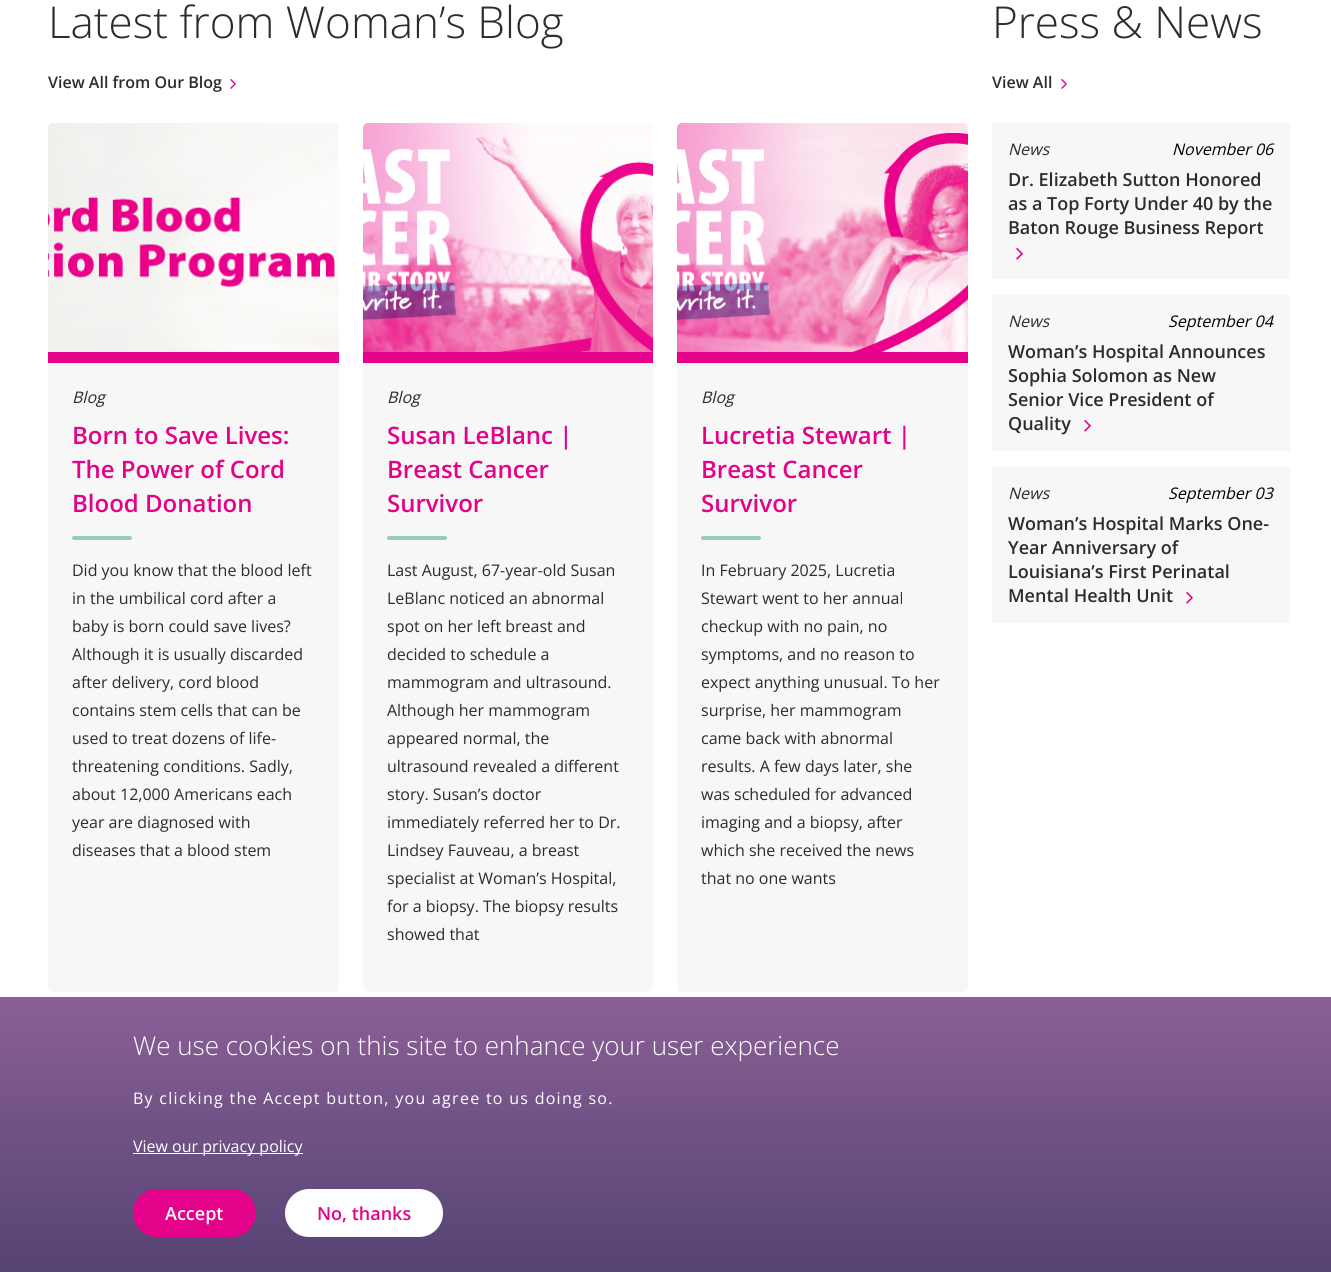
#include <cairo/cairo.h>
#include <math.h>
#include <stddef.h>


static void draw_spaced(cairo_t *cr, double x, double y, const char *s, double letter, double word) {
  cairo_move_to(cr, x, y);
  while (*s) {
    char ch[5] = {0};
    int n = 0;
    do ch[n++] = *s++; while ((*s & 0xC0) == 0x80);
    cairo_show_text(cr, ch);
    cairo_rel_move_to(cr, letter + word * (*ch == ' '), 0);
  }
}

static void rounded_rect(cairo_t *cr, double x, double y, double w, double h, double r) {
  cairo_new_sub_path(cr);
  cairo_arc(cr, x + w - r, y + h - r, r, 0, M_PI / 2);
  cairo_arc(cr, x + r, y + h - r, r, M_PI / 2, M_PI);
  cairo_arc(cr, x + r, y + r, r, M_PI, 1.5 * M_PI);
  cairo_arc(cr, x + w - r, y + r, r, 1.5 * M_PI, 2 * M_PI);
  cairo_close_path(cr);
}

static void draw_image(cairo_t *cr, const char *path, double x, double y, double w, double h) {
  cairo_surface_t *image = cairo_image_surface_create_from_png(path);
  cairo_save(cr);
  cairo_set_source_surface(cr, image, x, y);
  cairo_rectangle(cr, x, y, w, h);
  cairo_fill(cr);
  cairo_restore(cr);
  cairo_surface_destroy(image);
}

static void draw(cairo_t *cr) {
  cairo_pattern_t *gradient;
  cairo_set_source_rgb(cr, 1, 1, 1);
  cairo_paint(cr);
  draw_image(cr, "images/1.png", 230, 79, 6, 10);
  cairo_set_source_rgb(cr, 247 / 255.0, 247 / 255.0, 247 / 255.0);
  rounded_rect(cr, 48, 123, 291, 869, 5);
  cairo_fill(cr);
  draw_image(cr, "images/2.png", 48, 123, 291, 229);
  cairo_set_source_rgb(cr, 227 / 255.0, 2 / 255.0, 137 / 255.0);
  cairo_rectangle(cr, 48, 352, 291, 11);
  cairo_fill(cr);
  cairo_set_source_rgb(cr, 149 / 255.0, 204 / 255.0, 188 / 255.0);
  rounded_rect(cr, 72, 536, 60, 4, 2);
  cairo_fill(cr);
  cairo_set_source_rgb(cr, 247 / 255.0, 247 / 255.0, 247 / 255.0);
  rounded_rect(cr, 363, 123, 290, 869, 5);
  cairo_fill(cr);
  draw_image(cr, "images/3.png", 363, 123, 290, 229);
  cairo_set_source_rgb(cr, 227 / 255.0, 2 / 255.0, 137 / 255.0);
  cairo_rectangle(cr, 363, 352, 290, 11);
  cairo_fill(cr);
  cairo_set_source_rgb(cr, 149 / 255.0, 204 / 255.0, 188 / 255.0);
  rounded_rect(cr, 387, 536, 60, 4, 2);
  cairo_fill(cr);
  cairo_set_source_rgb(cr, 247 / 255.0, 247 / 255.0, 247 / 255.0);
  rounded_rect(cr, 677, 123, 291, 869, 5);
  cairo_fill(cr);
  draw_image(cr, "images/4.png", 677, 123, 291, 229);
  cairo_set_source_rgb(cr, 227 / 255.0, 2 / 255.0, 137 / 255.0);
  cairo_rectangle(cr, 677, 352, 291, 11);
  cairo_fill(cr);
  cairo_set_source_rgb(cr, 149 / 255.0, 204 / 255.0, 188 / 255.0);
  rounded_rect(cr, 701, 536, 60, 4, 2);
  cairo_fill(cr);
  draw_image(cr, "images/1.png", 1061, 79, 6, 10);
  cairo_set_source_rgb(cr, 247 / 255.0, 247 / 255.0, 247 / 255.0);
  cairo_rectangle(cr, 992, 123, 298, 156);
  cairo_fill(cr);
  draw_image(cr, "images/5.png", 1016, 248, 7, 12);
  cairo_rectangle(cr, 992, 295, 298, 156);
  cairo_fill(cr);
  draw_image(cr, "images/5.png", 1084, 420, 7, 12);
  cairo_rectangle(cr, 992, 467, 298, 156);
  cairo_fill(cr);
  draw_image(cr, "images/5.png", 1186, 592, 7, 12);
  gradient = cairo_pattern_create_linear(666, 997, 666, 1272);
  cairo_pattern_add_color_stop_rgba(gradient, 0.01, 138 / 255.0, 95 / 255.0, 149 / 255.0, 1);
  cairo_pattern_add_color_stop_rgba(gradient, 1, 85 / 255.0, 67 / 255.0, 116 / 255.0, 1);
  cairo_set_source(cr, gradient);
  cairo_pattern_destroy(gradient);
  cairo_rectangle(cr, 0, 997, 1331, 275);
  cairo_fill(cr);
  cairo_set_source_rgb(cr, 1, 1, 1);
  cairo_rectangle(cr, 133, 1153, 170, 1);
  cairo_fill(cr);
  cairo_set_source_rgb(cr, 227 / 255.0, 2 / 255.0, 137 / 255.0);
  rounded_rect(cr, 133, 1189, 123, 48, 24);
  cairo_fill(cr);
  cairo_set_source_rgb(cr, 1, 1, 1);
  rounded_rect(cr, 285, 1189, 158, 48, 24);
  cairo_fill(cr);
  cairo_select_font_face(cr, "Open Sans Light", CAIRO_FONT_SLANT_NORMAL, CAIRO_FONT_WEIGHT_NORMAL);
  cairo_set_font_size(cr, 44);
  cairo_set_source_rgb(cr, 44 / 255.0, 44 / 255.0, 44 / 255.0);
  cairo_move_to(cr, 48, 38);
  cairo_show_text(cr, "Latest from Woman’s Blog");
  cairo_select_font_face(cr, "Open Sans SemiBold", CAIRO_FONT_SLANT_NORMAL, CAIRO_FONT_WEIGHT_NORMAL);
  cairo_set_font_size(cr, 16);
  cairo_move_to(cr, 48, 88);
  cairo_show_text(cr, "View All from Our Blog");
  cairo_select_font_face(cr, "Open Sans", CAIRO_FONT_SLANT_ITALIC, CAIRO_FONT_WEIGHT_NORMAL);
  cairo_move_to(cr, 72, 403);
  cairo_show_text(cr, "Blog");
  cairo_select_font_face(cr, "Open Sans SemiBold", CAIRO_FONT_SLANT_NORMAL, CAIRO_FONT_WEIGHT_NORMAL);
  cairo_set_font_size(cr, 24);
  cairo_set_source_rgb(cr, 227 / 255.0, 2 / 255.0, 137 / 255.0);
  cairo_move_to(cr, 72, 444);
  cairo_show_text(cr, "Born to Save Lives:");
  cairo_move_to(cr, 72, 478);
  cairo_show_text(cr, "The Power of Cord");
  cairo_move_to(cr, 72, 512);
  cairo_show_text(cr, "Blood Donation");
  cairo_select_font_face(cr, "Open Sans", CAIRO_FONT_SLANT_NORMAL, CAIRO_FONT_WEIGHT_NORMAL);
  cairo_set_font_size(cr, 16);
  cairo_set_source_rgb(cr, 44 / 255.0, 44 / 255.0, 44 / 255.0);
  cairo_move_to(cr, 72, 576);
  cairo_show_text(cr, "Did you know that the blood left");
  cairo_move_to(cr, 72, 604);
  cairo_show_text(cr, "in the umbilical cord after a");
  cairo_move_to(cr, 72, 632);
  cairo_show_text(cr, "baby is born could save lives?");
  cairo_move_to(cr, 72, 660);
  cairo_show_text(cr, "Although it is usually discarded");
  cairo_move_to(cr, 72, 688);
  cairo_show_text(cr, "after delivery, cord blood");
  cairo_move_to(cr, 72, 716);
  cairo_show_text(cr, "contains stem cells that can be");
  cairo_move_to(cr, 72, 744);
  cairo_show_text(cr, "used to treat dozens of life-");
  cairo_move_to(cr, 72, 772);
  cairo_show_text(cr, "threatening conditions. Sadly,");
  cairo_move_to(cr, 72, 800);
  cairo_show_text(cr, "about 12,000 Americans each");
  cairo_move_to(cr, 72, 828);
  cairo_show_text(cr, "year are diagnosed with");
  cairo_move_to(cr, 72, 856);
  cairo_show_text(cr, "diseases that a blood stem");
  cairo_select_font_face(cr, "Open Sans", CAIRO_FONT_SLANT_ITALIC, CAIRO_FONT_WEIGHT_NORMAL);
  cairo_move_to(cr, 387, 403);
  cairo_show_text(cr, "Blog");
  cairo_select_font_face(cr, "Open Sans SemiBold", CAIRO_FONT_SLANT_NORMAL, CAIRO_FONT_WEIGHT_NORMAL);
  cairo_set_font_size(cr, 24);
  cairo_set_source_rgb(cr, 227 / 255.0, 2 / 255.0, 137 / 255.0);
  cairo_move_to(cr, 387, 444);
  cairo_show_text(cr, "Susan LeBlanc |");
  cairo_move_to(cr, 387, 478);
  cairo_show_text(cr, "Breast Cancer");
  cairo_move_to(cr, 387, 512);
  cairo_show_text(cr, "Survivor");
  cairo_select_font_face(cr, "Open Sans", CAIRO_FONT_SLANT_NORMAL, CAIRO_FONT_WEIGHT_NORMAL);
  cairo_set_font_size(cr, 16);
  cairo_set_source_rgb(cr, 44 / 255.0, 44 / 255.0, 44 / 255.0);
  cairo_move_to(cr, 387, 576);
  cairo_show_text(cr, "Last August, 67-year-old Susan");
  cairo_move_to(cr, 387, 604);
  cairo_show_text(cr, "LeBlanc noticed an abnormal");
  cairo_move_to(cr, 387, 632);
  cairo_show_text(cr, "spot on her left breast and");
  cairo_move_to(cr, 387, 660);
  cairo_show_text(cr, "decided to schedule a");
  cairo_move_to(cr, 387, 688);
  cairo_show_text(cr, "mammogram and ultrasound.");
  cairo_move_to(cr, 387, 716);
  cairo_show_text(cr, "Although her mammogram");
  cairo_move_to(cr, 387, 744);
  cairo_show_text(cr, "appeared normal, the");
  cairo_move_to(cr, 387, 772);
  cairo_show_text(cr, "ultrasound revealed a different");
  cairo_move_to(cr, 387, 800);
  cairo_show_text(cr, "story. Susan’s doctor");
  cairo_move_to(cr, 387, 828);
  cairo_show_text(cr, "immediately referred her to Dr.");
  cairo_move_to(cr, 387, 856);
  cairo_show_text(cr, "Lindsey Fauveau, a breast");
  cairo_move_to(cr, 387, 884);
  cairo_show_text(cr, "specialist at Woman’s Hospital,");
  cairo_move_to(cr, 387, 912);
  cairo_show_text(cr, "for a biopsy. The biopsy results");
  cairo_move_to(cr, 387, 940);
  cairo_show_text(cr, "showed that");
  cairo_select_font_face(cr, "Open Sans", CAIRO_FONT_SLANT_ITALIC, CAIRO_FONT_WEIGHT_NORMAL);
  cairo_move_to(cr, 701, 403);
  cairo_show_text(cr, "Blog");
  cairo_select_font_face(cr, "Open Sans SemiBold", CAIRO_FONT_SLANT_NORMAL, CAIRO_FONT_WEIGHT_NORMAL);
  cairo_set_font_size(cr, 24);
  cairo_set_source_rgb(cr, 227 / 255.0, 2 / 255.0, 137 / 255.0);
  cairo_move_to(cr, 701, 444);
  cairo_show_text(cr, "Lucretia Stewart |");
  cairo_move_to(cr, 701, 478);
  cairo_show_text(cr, "Breast Cancer");
  cairo_move_to(cr, 701, 512);
  cairo_show_text(cr, "Survivor");
  cairo_select_font_face(cr, "Open Sans", CAIRO_FONT_SLANT_NORMAL, CAIRO_FONT_WEIGHT_NORMAL);
  cairo_set_font_size(cr, 16);
  cairo_set_source_rgb(cr, 44 / 255.0, 44 / 255.0, 44 / 255.0);
  cairo_move_to(cr, 701, 576);
  cairo_show_text(cr, "In February 2025, Lucretia");
  cairo_move_to(cr, 701, 604);
  cairo_show_text(cr, "Stewart went to her annual");
  cairo_move_to(cr, 701, 632);
  cairo_show_text(cr, "checkup with no pain, no");
  cairo_move_to(cr, 701, 660);
  cairo_show_text(cr, "symptoms, and no reason to");
  cairo_move_to(cr, 701, 688);
  cairo_show_text(cr, "expect anything unusual. To her");
  cairo_move_to(cr, 701, 716);
  cairo_show_text(cr, "surprise, her mammogram");
  cairo_move_to(cr, 701, 744);
  cairo_show_text(cr, "came back with abnormal");
  cairo_move_to(cr, 701, 772);
  cairo_show_text(cr, "results. A few days later, she");
  cairo_move_to(cr, 701, 800);
  cairo_show_text(cr, "was scheduled for advanced");
  cairo_move_to(cr, 701, 828);
  cairo_show_text(cr, "imaging and a biopsy, after");
  cairo_move_to(cr, 701, 856);
  cairo_show_text(cr, "which she received the news");
  cairo_move_to(cr, 701, 884);
  cairo_show_text(cr, "that no one wants");
  cairo_select_font_face(cr, "Open Sans Light", CAIRO_FONT_SLANT_NORMAL, CAIRO_FONT_WEIGHT_NORMAL);
  cairo_set_font_size(cr, 44);
  cairo_move_to(cr, 992, 38);
  cairo_show_text(cr, "Press & News");
  cairo_select_font_face(cr, "Open Sans SemiBold", CAIRO_FONT_SLANT_NORMAL, CAIRO_FONT_WEIGHT_NORMAL);
  cairo_set_font_size(cr, 16);
  cairo_move_to(cr, 992, 88);
  cairo_show_text(cr, "View All");
  cairo_select_font_face(cr, "Open Sans", CAIRO_FONT_SLANT_ITALIC, CAIRO_FONT_WEIGHT_NORMAL);
  cairo_move_to(cr, 1008, 155);
  cairo_show_text(cr, "News");
  cairo_set_source_rgb(cr, 0, 0, 0);
  cairo_move_to(cr, 1172, 155);
  cairo_show_text(cr, "November 06");
  cairo_select_font_face(cr, "Open Sans SemiBold", CAIRO_FONT_SLANT_NORMAL, CAIRO_FONT_WEIGHT_NORMAL);
  cairo_set_font_size(cr, 18);
  cairo_set_source_rgb(cr, 44 / 255.0, 44 / 255.0, 44 / 255.0);
  cairo_move_to(cr, 1008, 186);
  cairo_show_text(cr, "Dr. Elizabeth Sutton Honored");
  cairo_move_to(cr, 1008, 210);
  cairo_show_text(cr, "as a Top Forty Under 40 by the");
  cairo_move_to(cr, 1008, 234);
  cairo_show_text(cr, "Baton Rouge Business Report");
  cairo_select_font_face(cr, "Open Sans", CAIRO_FONT_SLANT_ITALIC, CAIRO_FONT_WEIGHT_NORMAL);
  cairo_set_font_size(cr, 16);
  cairo_move_to(cr, 1008, 327);
  cairo_show_text(cr, "News");
  cairo_set_source_rgb(cr, 0, 0, 0);
  cairo_move_to(cr, 1168, 327);
  cairo_show_text(cr, "September 04");
  cairo_select_font_face(cr, "Open Sans SemiBold", CAIRO_FONT_SLANT_NORMAL, CAIRO_FONT_WEIGHT_NORMAL);
  cairo_set_font_size(cr, 18);
  cairo_set_source_rgb(cr, 44 / 255.0, 44 / 255.0, 44 / 255.0);
  cairo_move_to(cr, 1008, 358);
  cairo_show_text(cr, "Woman’s Hospital Announces");
  cairo_move_to(cr, 1008, 382);
  cairo_show_text(cr, "Sophia Solomon as New");
  cairo_move_to(cr, 1008, 406);
  cairo_show_text(cr, "Senior Vice President of");
  cairo_move_to(cr, 1008, 430);
  cairo_show_text(cr, "Quality");
  cairo_select_font_face(cr, "Open Sans", CAIRO_FONT_SLANT_ITALIC, CAIRO_FONT_WEIGHT_NORMAL);
  cairo_set_font_size(cr, 16);
  cairo_move_to(cr, 1008, 499);
  cairo_show_text(cr, "News");
  cairo_set_source_rgb(cr, 0, 0, 0);
  cairo_move_to(cr, 1168, 499);
  cairo_show_text(cr, "September 03");
  cairo_select_font_face(cr, "Open Sans SemiBold", CAIRO_FONT_SLANT_NORMAL, CAIRO_FONT_WEIGHT_NORMAL);
  cairo_set_font_size(cr, 18);
  cairo_set_source_rgb(cr, 44 / 255.0, 44 / 255.0, 44 / 255.0);
  cairo_move_to(cr, 1008, 530);
  cairo_show_text(cr, "Woman’s Hospital Marks One-");
  cairo_move_to(cr, 1008, 554);
  cairo_show_text(cr, "Year Anniversary of");
  cairo_move_to(cr, 1008, 578);
  cairo_show_text(cr, "Louisiana’s First Perinatal");
  cairo_move_to(cr, 1008, 602);
  cairo_show_text(cr, "Mental Health Unit");
  cairo_select_font_face(cr, "Open Sans Light", CAIRO_FONT_SLANT_NORMAL, CAIRO_FONT_WEIGHT_NORMAL);
  cairo_set_font_size(cr, 26);
  cairo_set_source_rgb(cr, 1, 1, 1);
  cairo_move_to(cr, 133, 1055);
  cairo_show_text(cr, "We use cookies on this site to enhance your user experience");
  cairo_select_font_face(cr, "Open Sans", CAIRO_FONT_SLANT_NORMAL, CAIRO_FONT_WEIGHT_NORMAL);
  cairo_set_font_size(cr, 16);
  draw_spaced(cr, 133, 1104, "By clicking the Accept button, you agree to us doing so.", 1.28, 0);
  cairo_move_to(cr, 133, 1152);
  cairo_show_text(cr, "View our privacy policy");
  cairo_select_font_face(cr, "Open Sans SemiBold", CAIRO_FONT_SLANT_NORMAL, CAIRO_FONT_WEIGHT_NORMAL);
  cairo_set_font_size(cr, 18);
  cairo_move_to(cr, 165, 1220);
  cairo_show_text(cr, "Accept");
  cairo_set_source_rgb(cr, 227 / 255.0, 2 / 255.0, 137 / 255.0);
  cairo_move_to(cr, 317, 1220);
  cairo_show_text(cr, "No, thanks");
}

int main(void) {
  cairo_surface_t *surface = cairo_image_surface_create(CAIRO_FORMAT_RGB24, 1331, 1272);
  cairo_t *cr = cairo_create(surface);
  cairo_font_options_t *options = cairo_font_options_create();
  cairo_font_options_set_hint_metrics(options, CAIRO_HINT_METRICS_OFF);
  cairo_font_options_set_hint_style(options, CAIRO_HINT_STYLE_NONE);
  cairo_set_font_options(cr, options);
  cairo_set_miter_limit(cr, 4);
  draw(cr);
  cairo_surface_write_to_png(surface, "out.png");
  cairo_font_options_destroy(options);
  cairo_destroy(cr);
  cairo_surface_destroy(surface);
  return 0;
}
